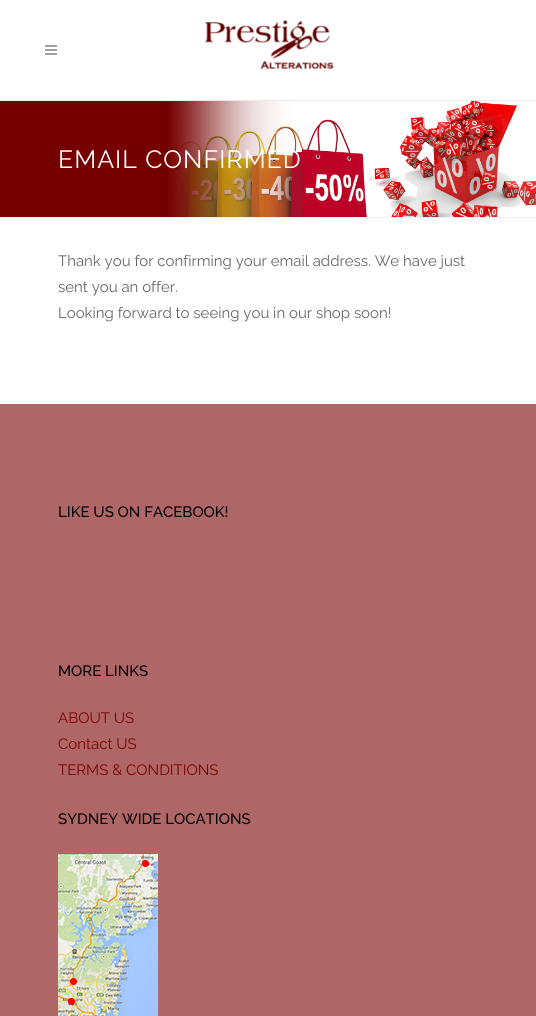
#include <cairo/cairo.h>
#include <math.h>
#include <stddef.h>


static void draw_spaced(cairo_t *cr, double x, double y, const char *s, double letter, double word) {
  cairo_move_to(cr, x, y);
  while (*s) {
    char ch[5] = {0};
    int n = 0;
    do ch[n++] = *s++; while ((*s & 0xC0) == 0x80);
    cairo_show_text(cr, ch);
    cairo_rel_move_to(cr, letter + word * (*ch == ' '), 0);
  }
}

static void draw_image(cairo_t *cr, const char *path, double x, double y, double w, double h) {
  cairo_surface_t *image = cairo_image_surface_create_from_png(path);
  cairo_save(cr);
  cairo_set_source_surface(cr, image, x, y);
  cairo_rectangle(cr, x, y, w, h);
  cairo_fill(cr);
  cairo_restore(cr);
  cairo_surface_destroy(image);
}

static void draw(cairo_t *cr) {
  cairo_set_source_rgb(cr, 1, 1, 1);
  cairo_paint(cr);
  cairo_set_source_rgb(cr, 234 / 255.0, 234 / 255.0, 234 / 255.0);
  cairo_rectangle(cr, 0, 100, 536, 1);
  cairo_fill(cr);
  draw_image(cr, "images/1.png", 45, 45, 12, 10);
  draw_image(cr, "images/2.png", 204, 20, 130, 50);
  cairo_set_source_rgb(cr, 238 / 255.0, 238 / 255.0, 238 / 255.0);
  cairo_rectangle(cr, 0, 217, 536, 1);
  cairo_fill(cr);
  draw_image(cr, "images/3.png", 0, 101, 536, 116);
  cairo_set_source_rgb(cr, 174 / 255.0, 102 / 255.0, 102 / 255.0);
  cairo_rectangle(cr, 0, 404, 536, 612);
  cairo_fill(cr);
  draw_image(cr, "images/4.png", 58, 854, 100, 162);
  cairo_select_font_face(cr, "Raleway", CAIRO_FONT_SLANT_NORMAL, CAIRO_FONT_WEIGHT_NORMAL);
  cairo_set_font_size(cr, 25);
  cairo_set_source_rgb(cr, 1, 1, 1);
  draw_spaced(cr, 58, 168, "EMAIL CONFIRMED", 1, 0);
  cairo_set_font_size(cr, 15);
  cairo_set_source_rgb(cr, 102 / 255.0, 102 / 255.0, 102 / 255.0);
  cairo_move_to(cr, 58, 266);
  cairo_show_text(cr, "Thank you for confirming your email address. We have just");
  cairo_move_to(cr, 58, 292);
  cairo_show_text(cr, "sent you an offer.");
  cairo_move_to(cr, 58, 318);
  cairo_show_text(cr, "Looking forward to seeing you in our shop soon!");
  cairo_select_font_face(cr, "Raleway Medium", CAIRO_FONT_SLANT_NORMAL, CAIRO_FONT_WEIGHT_NORMAL);
  cairo_set_source_rgb(cr, 0, 0, 0);
  cairo_move_to(cr, 58, 517);
  cairo_show_text(cr, "LIKE US ON FACEBOOK!");
  cairo_move_to(cr, 58, 676);
  cairo_show_text(cr, "MORE LINKS");
  cairo_select_font_face(cr, "Raleway", CAIRO_FONT_SLANT_NORMAL, CAIRO_FONT_WEIGHT_NORMAL);
  cairo_set_source_rgb(cr, 125 / 255.0, 2 / 255.0, 2 / 255.0);
  cairo_move_to(cr, 58, 723);
  cairo_show_text(cr, "ABOUT US");
  cairo_move_to(cr, 58, 749);
  cairo_show_text(cr, "Contact US");
  cairo_move_to(cr, 58, 775);
  cairo_show_text(cr, "TERMS & CONDITIONS");
  cairo_select_font_face(cr, "Raleway Medium", CAIRO_FONT_SLANT_NORMAL, CAIRO_FONT_WEIGHT_NORMAL);
  cairo_set_source_rgb(cr, 0, 0, 0);
  cairo_move_to(cr, 58, 824);
  cairo_show_text(cr, "SYDNEY WIDE LOCATIONS");
}

int main(void) {
  cairo_surface_t *surface = cairo_image_surface_create(CAIRO_FORMAT_RGB24, 536, 1016);
  cairo_t *cr = cairo_create(surface);
  cairo_font_options_t *options = cairo_font_options_create();
  cairo_font_options_set_hint_metrics(options, CAIRO_HINT_METRICS_OFF);
  cairo_font_options_set_hint_style(options, CAIRO_HINT_STYLE_NONE);
  cairo_set_font_options(cr, options);
  cairo_set_miter_limit(cr, 4);
  draw(cr);
  cairo_surface_write_to_png(surface, "out.png");
  cairo_font_options_destroy(options);
  cairo_destroy(cr);
  cairo_surface_destroy(surface);
  return 0;
}
